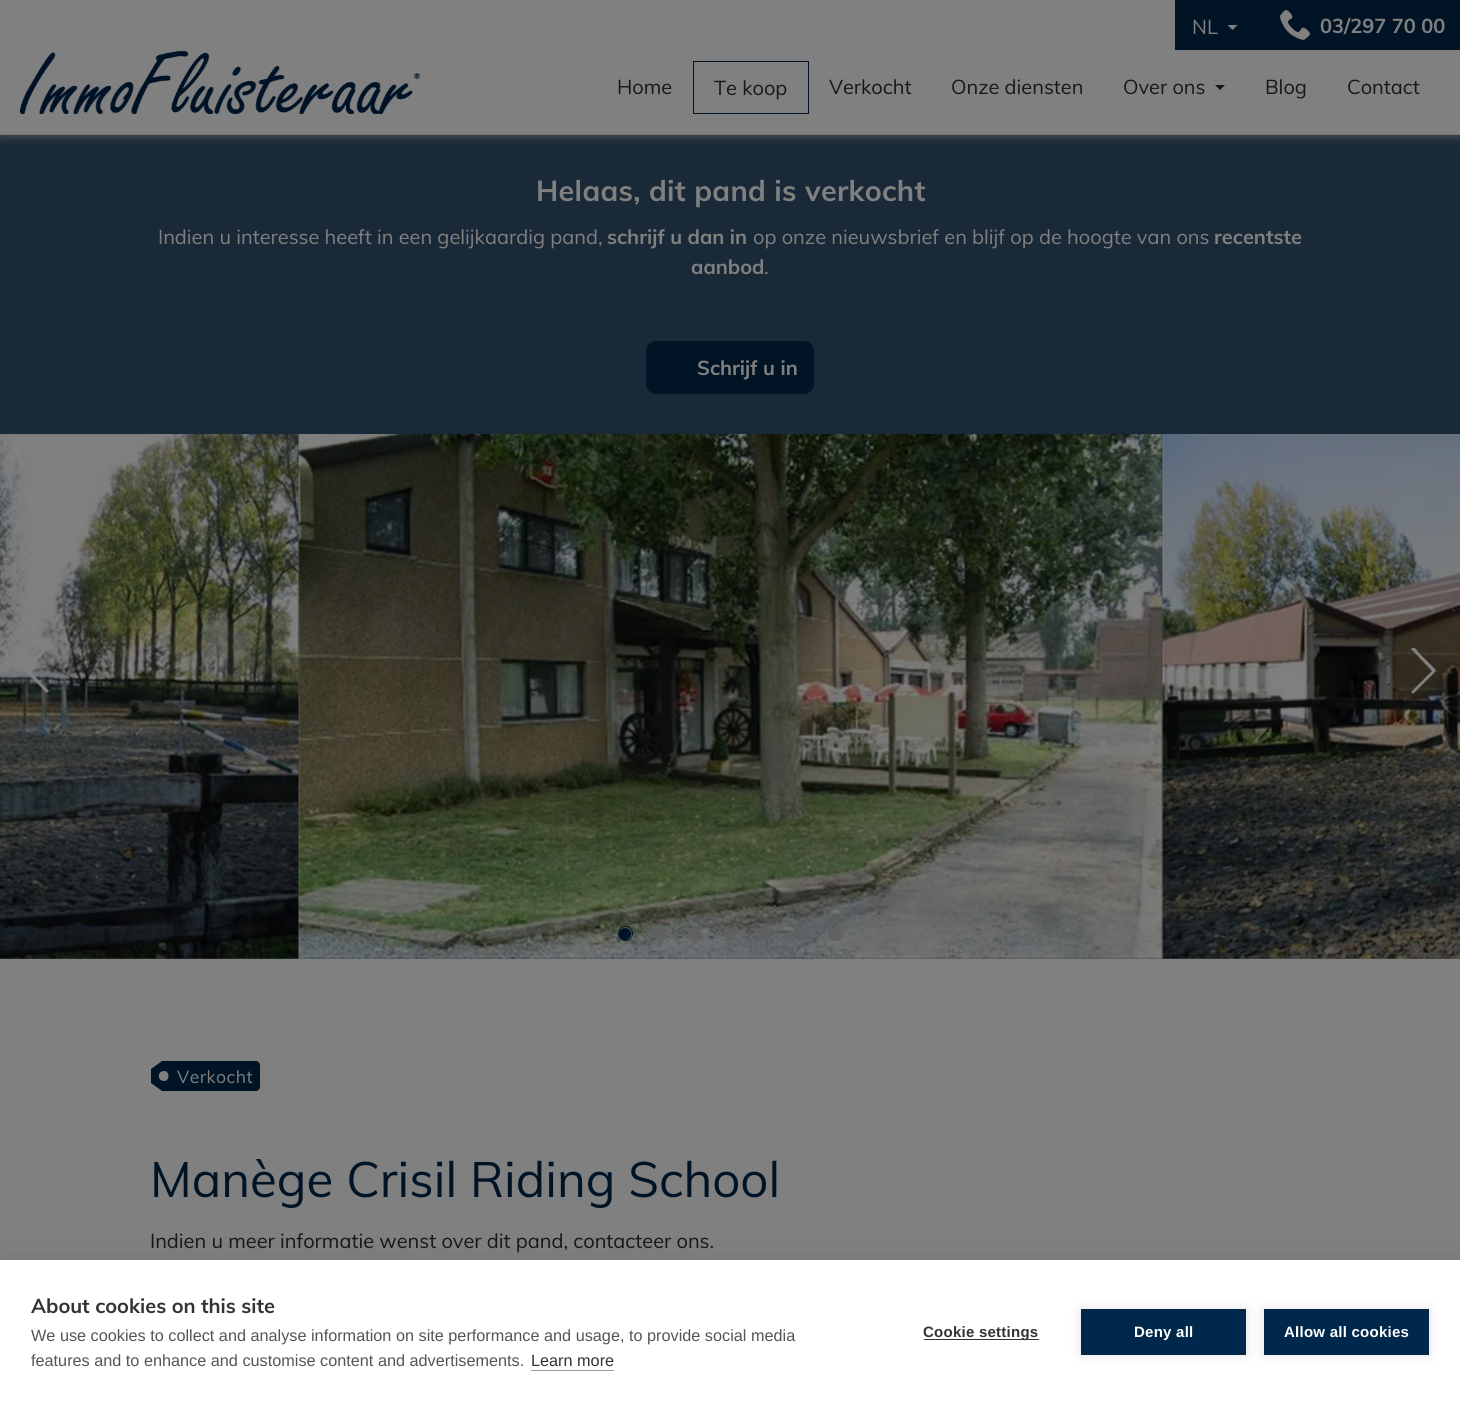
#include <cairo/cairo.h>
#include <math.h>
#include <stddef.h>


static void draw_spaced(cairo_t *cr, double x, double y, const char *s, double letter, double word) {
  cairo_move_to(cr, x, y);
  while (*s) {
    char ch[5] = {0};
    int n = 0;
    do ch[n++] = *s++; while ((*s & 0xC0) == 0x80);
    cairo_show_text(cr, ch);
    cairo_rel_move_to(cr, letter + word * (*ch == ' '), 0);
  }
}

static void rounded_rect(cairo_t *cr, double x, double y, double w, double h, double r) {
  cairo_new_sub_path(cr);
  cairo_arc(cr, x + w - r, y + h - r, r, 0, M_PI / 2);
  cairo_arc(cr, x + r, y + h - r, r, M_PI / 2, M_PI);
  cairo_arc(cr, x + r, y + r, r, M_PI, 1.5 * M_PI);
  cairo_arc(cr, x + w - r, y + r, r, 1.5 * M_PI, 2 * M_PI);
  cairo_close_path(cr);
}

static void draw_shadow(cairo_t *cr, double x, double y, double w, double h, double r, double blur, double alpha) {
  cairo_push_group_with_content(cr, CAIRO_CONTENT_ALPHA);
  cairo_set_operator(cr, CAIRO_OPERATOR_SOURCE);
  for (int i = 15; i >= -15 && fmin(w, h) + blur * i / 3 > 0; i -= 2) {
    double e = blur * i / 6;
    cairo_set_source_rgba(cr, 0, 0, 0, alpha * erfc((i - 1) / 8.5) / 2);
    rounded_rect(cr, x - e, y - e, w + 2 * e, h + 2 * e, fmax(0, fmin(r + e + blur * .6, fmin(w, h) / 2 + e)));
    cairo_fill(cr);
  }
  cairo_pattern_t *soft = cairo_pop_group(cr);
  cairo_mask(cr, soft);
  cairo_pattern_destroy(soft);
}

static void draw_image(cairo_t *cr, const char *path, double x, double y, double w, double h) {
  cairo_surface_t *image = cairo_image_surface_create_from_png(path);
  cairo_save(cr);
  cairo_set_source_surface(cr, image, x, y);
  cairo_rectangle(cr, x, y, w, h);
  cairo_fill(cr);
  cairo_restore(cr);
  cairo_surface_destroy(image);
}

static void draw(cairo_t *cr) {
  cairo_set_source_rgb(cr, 128 / 255.0, 128 / 255.0, 128 / 255.0);
  cairo_paint(cr);
  cairo_set_source_rgb(cr, 26 / 255.0, 41 / 255.0, 56 / 255.0);
  cairo_rectangle(cr, 0, 135, 1460, 299);
  cairo_fill(cr);
  cairo_set_source_rgb(cr, 102 / 255.0, 102 / 255.0, 102 / 255.0);
  draw_shadow(cr, 0, 0, 1460, 134, 0, 6, 1);
  cairo_set_source_rgb(cr, 128 / 255.0, 128 / 255.0, 128 / 255.0);
  cairo_rectangle(cr, 0, 0, 1460, 134);
  cairo_fill(cr);
  draw_image(cr, "images/1.png", 20, 50, 400, 64);
  cairo_set_source_rgb(cr, 0, 20 / 255.0, 38 / 255.0);
  cairo_rectangle(cr, 1175, 0, 285, 50);
  cairo_fill(cr);
  cairo_set_source_rgb(cr, 128 / 255.0, 128 / 255.0, 128 / 255.0);
  cairo_new_path(cr);
  cairo_move_to(cr, 1227.5, 25);
  cairo_line_to(cr, 1237.5, 25);
  cairo_line_to(cr, 1232.5, 30);
  cairo_close_path(cr);
  cairo_fill(cr);
  draw_image(cr, "images/2.png", 1280, 10, 30, 30);
  cairo_rectangle(cr, 693.5, 61.5, 115, 52);
  cairo_set_source_rgb(cr, 0, 20 / 255.0, 38 / 255.0);
  cairo_set_line_width(cr, 1);
  cairo_stroke(cr);
  cairo_set_source_rgb(cr, 23 / 255.0, 23 / 255.0, 23 / 255.0);
  cairo_new_path(cr);
  cairo_move_to(cr, 1215, 85);
  cairo_line_to(cr, 1225, 85);
  cairo_line_to(cr, 1220, 90);
  cairo_close_path(cr);
  cairo_fill(cr);
  cairo_set_source_rgb(cr, 0, 20 / 255.0, 38 / 255.0);
  rounded_rect(cr, 646.5, 341.5, 167, 52, 9.5);
  cairo_fill_preserve(cr);
  cairo_stroke(cr);
  cairo_set_source_rgb(cr, 119 / 255.0, 119 / 255.0, 119 / 255.0);
  cairo_rectangle(cr, 0, 434, 1163, 525);
  cairo_fill(cr);
  draw_image(cr, "images/3.png", 0, 434, 299, 525);
  draw_image(cr, "images/4.png", 298, 434, 865, 525);
  draw_image(cr, "images/5.png", 1161, 434, 299, 525);
  cairo_set_source_rgb(cr, 128 / 255.0, 128 / 255.0, 128 / 255.0);
  cairo_new_path(cr);
  cairo_move_to(cr, 48, 692);
  cairo_curve_to(cr, 49, 691, 49, 690, 48, 690);
  cairo_line_to(cr, 28, 669);
  cairo_line_to(cr, 45, 652);
  cairo_curve_to(cr, 46, 651, 49, 650, 49, 648);
  cairo_curve_to(cr, 49, 642, 40, 653, 35, 657);
  cairo_curve_to(cr, 20, 672, 20, 666, 35, 681);
  cairo_line_to(cr, 42, 688);
  cairo_curve_to(cr, 43, 689, 46, 694, 48, 692);
  cairo_close_path(cr);
  cairo_fill(cr);
  cairo_save(cr);
  cairo_rectangle(cr, 1411, 648, 25, 46);
  cairo_clip(cr);
  cairo_new_path(cr);
  cairo_move_to(cr, 1412, 648);
  cairo_curve_to(cr, 1411, 649, 1411, 650, 1412, 650);
  cairo_line_to(cr, 1432, 671);
  cairo_line_to(cr, 1412, 691);
  cairo_curve_to(cr, 1411, 693, 1412, 694, 1414, 693);
  cairo_line_to(cr, 1432, 675);
  cairo_curve_to(cr, 1437, 670, 1437, 671, 1432, 666);
  cairo_line_to(cr, 1418, 652);
  cairo_curve_to(cr, 1418, 651, 1414, 646, 1412, 648);
  cairo_close_path(cr);
  cairo_fill(cr);
  cairo_restore(cr);
  cairo_set_source_rgb(cr, 0, 20 / 255.0, 38 / 255.0);
  cairo_arc(cr, 625, 934, 6, 0, 2 * M_PI);
  cairo_fill(cr);
  cairo_arc(cr, 625.5, 933.5, 7, 0, 2 * M_PI);
  cairo_stroke(cr);
  cairo_set_source_rgb(cr, 96 / 255.0, 96 / 255.0, 96 / 255.0);
  cairo_arc(cr, 660, 934, 6, 0, 2 * M_PI);
  cairo_fill(cr);
  cairo_arc(cr, 660.5, 933.5, 7, 0, 2 * M_PI);
  cairo_stroke(cr);
  cairo_arc(cr, 695, 934, 6, 0, 2 * M_PI);
  cairo_fill(cr);
  cairo_arc(cr, 695.5, 933.5, 7, 0, 2 * M_PI);
  cairo_stroke(cr);
  cairo_arc(cr, 730, 934, 6, 0, 2 * M_PI);
  cairo_fill(cr);
  cairo_arc(cr, 730.5, 933.5, 7, 0, 2 * M_PI);
  cairo_stroke(cr);
  cairo_arc(cr, 765, 934, 6, 0, 2 * M_PI);
  cairo_fill(cr);
  cairo_arc(cr, 765.5, 933.5, 7, 0, 2 * M_PI);
  cairo_stroke(cr);
  cairo_arc(cr, 800, 934, 6, 0, 2 * M_PI);
  cairo_fill(cr);
  cairo_arc(cr, 800.5, 933.5, 7, 0, 2 * M_PI);
  cairo_stroke(cr);
  cairo_arc(cr, 835, 934, 6, 0, 2 * M_PI);
  cairo_fill(cr);
  cairo_arc(cr, 835.5, 933.5, 7, 0, 2 * M_PI);
  cairo_stroke(cr);
  cairo_save(cr);
  cairo_rectangle(cr, 150, 1061, 20, 30);
  cairo_clip(cr);
  cairo_set_source_rgb(cr, 0, 20 / 255.0, 38 / 255.0);
  cairo_set_fill_rule(cr, CAIRO_FILL_RULE_EVEN_ODD);
  cairo_new_path(cr);
  cairo_move_to(cr, 151, 1083);
  cairo_line_to(cr, 162, 1091);
  cairo_line_to(cr, 256, 1091);
  cairo_curve_to(cr, 258, 1091, 260, 1089, 260, 1087);
  cairo_line_to(cr, 260, 1065);
  cairo_curve_to(cr, 260, 1063, 258, 1061, 256, 1061);
  cairo_line_to(cr, 162, 1061);
  cairo_line_to(cr, 151, 1069);
  cairo_close_path(cr);
  cairo_move_to(cr, 164, 1071);
  cairo_curve_to(cr, 157, 1071, 157, 1081, 164, 1081);
  cairo_curve_to(cr, 170, 1081, 170, 1071, 164, 1071);
  cairo_close_path(cr);
  cairo_fill(cr);
  cairo_restore(cr);
  cairo_set_source_rgb(cr, 0, 20 / 255.0, 38 / 255.0);
  cairo_new_path(cr);
  cairo_move_to(cr, 170, 1061);
  cairo_line_to(cr, 256, 1061);
  cairo_curve_to(cr, 258, 1061, 260, 1063, 260, 1065);
  cairo_line_to(cr, 260, 1087);
  cairo_curve_to(cr, 260, 1089, 258, 1091, 256, 1091);
  cairo_line_to(cr, 170, 1091);
  cairo_close_path(cr);
  cairo_fill(cr);
  cairo_set_source_rgb(cr, 0, 0, 0);
  draw_shadow(cr, 0, 1260, 1460, 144, 0, 12.5, 0.1);
  cairo_set_source_rgb(cr, 1, 1, 1);
  cairo_rectangle(cr, 0, 1260, 1460, 143);
  cairo_fill(cr);
  cairo_set_source_rgb(cr, 153 / 255.0, 153 / 255.0, 153 / 255.0);
  cairo_rectangle(cr, 531, 1370, 83, 1);
  cairo_fill(cr);
  cairo_set_source_rgb(cr, 51 / 255.0, 51 / 255.0, 51 / 255.0);
  cairo_rectangle(cr, 924, 1339, 115, 1);
  cairo_fill(cr);
  cairo_set_source_rgb(cr, 0, 0, 0);
  draw_shadow(cr, 1081, 1309, 165, 46, 0, 6, 0.12);
  cairo_set_source_rgb(cr, 0, 39 / 255.0, 76 / 255.0);
  cairo_rectangle(cr, 1081, 1309, 165, 46);
  cairo_fill(cr);
  cairo_set_source_rgb(cr, 0, 0, 0);
  draw_shadow(cr, 1264, 1309, 165, 46, 0, 6, 0.12);
  cairo_set_source_rgb(cr, 0, 39 / 255.0, 76 / 255.0);
  cairo_rectangle(cr, 1264, 1309, 165, 46);
  cairo_fill(cr);
  cairo_select_font_face(cr, "Muli", CAIRO_FONT_SLANT_NORMAL, CAIRO_FONT_WEIGHT_NORMAL);
  cairo_set_font_size(cr, 20);
  cairo_set_source_rgb(cr, 128 / 255.0, 128 / 255.0, 128 / 255.0);
  cairo_move_to(cr, 1192, 34);
  cairo_show_text(cr, "NL");
  cairo_select_font_face(cr, "Muli", CAIRO_FONT_SLANT_NORMAL, CAIRO_FONT_WEIGHT_BOLD);
  cairo_move_to(cr, 1320, 33);
  cairo_show_text(cr, "03/297 70 00");
  cairo_select_font_face(cr, "Muli", CAIRO_FONT_SLANT_NORMAL, CAIRO_FONT_WEIGHT_NORMAL);
  cairo_set_source_rgb(cr, 23 / 255.0, 23 / 255.0, 23 / 255.0);
  cairo_move_to(cr, 617, 94);
  cairo_show_text(cr, "Home");
  cairo_move_to(cr, 714, 95);
  cairo_show_text(cr, "Te koop");
  cairo_move_to(cr, 829, 94);
  cairo_show_text(cr, "Verkocht");
  cairo_move_to(cr, 951, 94);
  cairo_show_text(cr, "Onze diensten");
  cairo_move_to(cr, 1123, 94);
  cairo_show_text(cr, "Over ons");
  cairo_move_to(cr, 1265, 94);
  cairo_show_text(cr, "Blog");
  cairo_move_to(cr, 1347, 94);
  cairo_show_text(cr, "Contact");
  cairo_select_font_face(cr, "Muli", CAIRO_FONT_SLANT_NORMAL, CAIRO_FONT_WEIGHT_BOLD);
  cairo_set_font_size(cr, 28.75);
  cairo_set_source_rgb(cr, 128 / 255.0, 128 / 255.0, 128 / 255.0);
  draw_spaced(cr, 536, 201, "Helaas, dit pand is verkocht", 0.3, 0);
  cairo_select_font_face(cr, "Muli", CAIRO_FONT_SLANT_NORMAL, CAIRO_FONT_WEIGHT_NORMAL);
  cairo_set_font_size(cr, 20);
  cairo_move_to(cr, 158, 244);
  cairo_show_text(cr, "Indien u interesse heeft in een gelijkaardig pand,");
  cairo_select_font_face(cr, "Muli", CAIRO_FONT_SLANT_NORMAL, CAIRO_FONT_WEIGHT_BOLD);
  cairo_move_to(cr, 607, 244);
  cairo_show_text(cr, "schrijf u dan in");
  cairo_select_font_face(cr, "Muli", CAIRO_FONT_SLANT_NORMAL, CAIRO_FONT_WEIGHT_NORMAL);
  cairo_move_to(cr, 753, 244);
  cairo_show_text(cr, "op onze nieuwsbrief en blijf op de hoogte van ons");
  cairo_select_font_face(cr, "Muli", CAIRO_FONT_SLANT_NORMAL, CAIRO_FONT_WEIGHT_BOLD);
  cairo_move_to(cr, 1214, 244);
  cairo_show_text(cr, "recentste");
  cairo_move_to(cr, 691, 274);
  cairo_show_text(cr, "aanbod");
  cairo_select_font_face(cr, "Muli", CAIRO_FONT_SLANT_NORMAL, CAIRO_FONT_WEIGHT_NORMAL);
  cairo_move_to(cr, 764, 274);
  cairo_show_text(cr, ".");
  cairo_select_font_face(cr, "Muli", CAIRO_FONT_SLANT_NORMAL, CAIRO_FONT_WEIGHT_BOLD);
  cairo_move_to(cr, 697, 375);
  cairo_show_text(cr, "Schrijf u in");
  cairo_select_font_face(cr, "Muli", CAIRO_FONT_SLANT_NORMAL, CAIRO_FONT_WEIGHT_NORMAL);
  cairo_set_font_size(cr, 17.5);
  draw_spaced(cr, 177, 1083, "Verkocht", 0.5, 0);
  cairo_set_font_size(cr, 49.2);
  cairo_set_source_rgb(cr, 0, 20 / 255.0, 38 / 255.0);
  cairo_move_to(cr, 150, 1197);
  cairo_show_text(cr, "Manège Crisil Riding School");
  cairo_set_font_size(cr, 20);
  cairo_set_source_rgb(cr, 23 / 255.0, 23 / 255.0, 23 / 255.0);
  cairo_move_to(cr, 150, 1248);
  cairo_show_text(cr, "Indien u meer informatie wenst over dit pand, contacteer ons.");
  cairo_select_font_face(cr, "Muli", CAIRO_FONT_SLANT_NORMAL, CAIRO_FONT_WEIGHT_BOLD);
  cairo_set_source_rgb(cr, 51 / 255.0, 51 / 255.0, 51 / 255.0);
  cairo_move_to(cr, 31, 1313);
  cairo_show_text(cr, "About cookies on this site");
  cairo_select_font_face(cr, "Liberation Sans", CAIRO_FONT_SLANT_NORMAL, CAIRO_FONT_WEIGHT_NORMAL);
  cairo_set_font_size(cr, 16.25);
  cairo_set_source_rgb(cr, 85 / 255.0, 85 / 255.0, 85 / 255.0);
  cairo_move_to(cr, 31, 1341);
  cairo_show_text(cr, "We use cookies to collect and analyse information on site performance and usage, to provide social media");
  cairo_move_to(cr, 31, 1366);
  cairo_show_text(cr, "features and to enhance and customise content and advertisements.");
  cairo_set_source_rgb(cr, 51 / 255.0, 51 / 255.0, 51 / 255.0);
  cairo_move_to(cr, 531, 1366);
  cairo_show_text(cr, "Learn more");
  cairo_select_font_face(cr, "Liberation Sans", CAIRO_FONT_SLANT_NORMAL, CAIRO_FONT_WEIGHT_BOLD);
  cairo_set_font_size(cr, 15);
  draw_spaced(cr, 923, 1337, "Cookie settings", 0.25, 0);
  cairo_set_source_rgb(cr, 1, 1, 1);
  draw_spaced(cr, 1134, 1337, "Deny all", 0.25, 0);
  draw_spaced(cr, 1284, 1337, "Allow all cookies", 0.25, 0);
}

int main(void) {
  cairo_surface_t *surface = cairo_image_surface_create(CAIRO_FORMAT_RGB24, 1460, 1403);
  cairo_t *cr = cairo_create(surface);
  cairo_font_options_t *options = cairo_font_options_create();
  cairo_font_options_set_hint_metrics(options, CAIRO_HINT_METRICS_OFF);
  cairo_font_options_set_hint_style(options, CAIRO_HINT_STYLE_NONE);
  cairo_set_font_options(cr, options);
  cairo_set_miter_limit(cr, 4);
  draw(cr);
  cairo_surface_write_to_png(surface, "out.png");
  cairo_font_options_destroy(options);
  cairo_destroy(cr);
  cairo_surface_destroy(surface);
  return 0;
}
